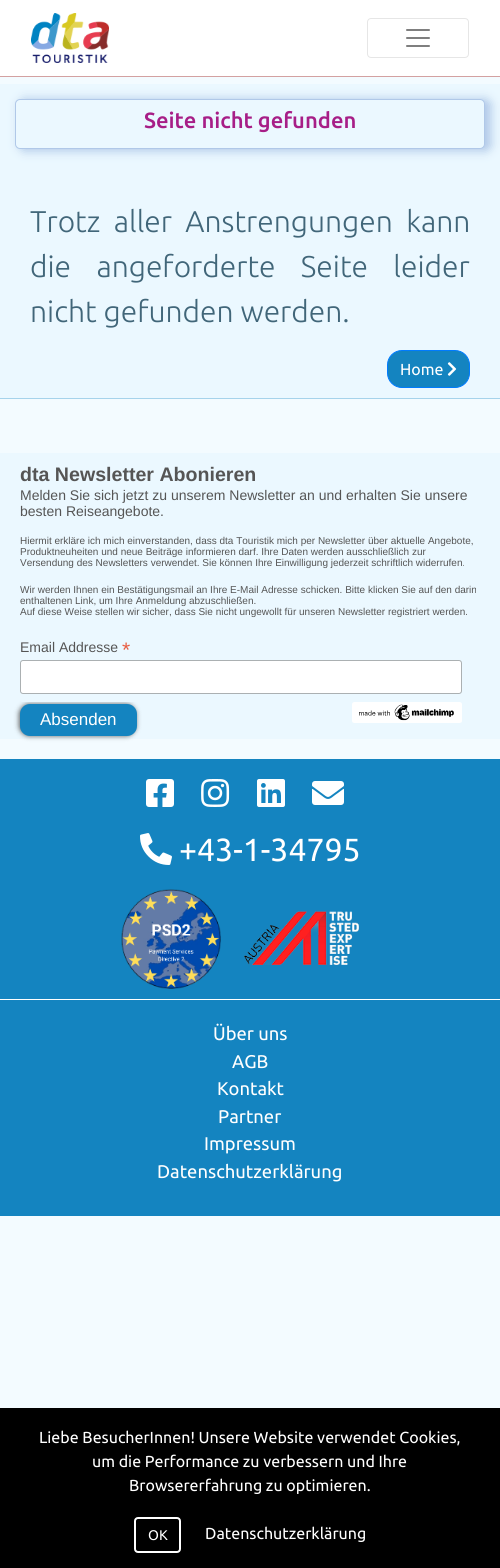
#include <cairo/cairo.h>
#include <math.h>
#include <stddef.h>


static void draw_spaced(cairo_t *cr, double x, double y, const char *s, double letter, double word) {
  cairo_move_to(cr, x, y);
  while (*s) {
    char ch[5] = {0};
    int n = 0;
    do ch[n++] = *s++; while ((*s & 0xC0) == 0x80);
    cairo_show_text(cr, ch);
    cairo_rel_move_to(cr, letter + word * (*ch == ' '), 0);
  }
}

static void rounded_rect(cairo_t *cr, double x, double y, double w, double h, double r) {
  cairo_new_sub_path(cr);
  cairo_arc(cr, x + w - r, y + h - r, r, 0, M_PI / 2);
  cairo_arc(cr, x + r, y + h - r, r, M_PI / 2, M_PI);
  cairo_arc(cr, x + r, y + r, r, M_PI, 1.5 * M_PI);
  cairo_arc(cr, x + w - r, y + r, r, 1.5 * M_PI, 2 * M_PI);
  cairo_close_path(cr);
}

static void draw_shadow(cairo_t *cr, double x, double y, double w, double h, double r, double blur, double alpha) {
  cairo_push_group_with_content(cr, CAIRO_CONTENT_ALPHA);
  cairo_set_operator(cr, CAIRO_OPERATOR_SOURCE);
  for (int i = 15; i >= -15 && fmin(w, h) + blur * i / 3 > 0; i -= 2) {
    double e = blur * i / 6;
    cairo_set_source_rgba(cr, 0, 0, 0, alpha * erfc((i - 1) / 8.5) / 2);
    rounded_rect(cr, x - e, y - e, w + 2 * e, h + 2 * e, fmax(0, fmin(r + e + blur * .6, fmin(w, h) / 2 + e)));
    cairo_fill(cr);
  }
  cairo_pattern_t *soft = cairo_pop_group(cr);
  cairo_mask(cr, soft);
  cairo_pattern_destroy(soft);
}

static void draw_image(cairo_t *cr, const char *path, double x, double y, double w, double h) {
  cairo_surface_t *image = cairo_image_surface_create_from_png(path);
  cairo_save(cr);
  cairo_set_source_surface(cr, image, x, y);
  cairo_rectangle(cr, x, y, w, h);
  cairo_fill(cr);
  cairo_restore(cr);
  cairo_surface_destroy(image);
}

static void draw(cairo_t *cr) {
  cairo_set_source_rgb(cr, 243 / 255.0, 251 / 255.0, 1);
  cairo_paint(cr);
  cairo_set_source_rgb(cr, 1, 1, 1);
  cairo_rectangle(cr, 0, 0, 500, 76);
  cairo_fill(cr);
  cairo_set_source_rgb(cr, 211 / 255.0, 161 / 255.0, 161 / 255.0);
  cairo_rectangle(cr, 0, 76, 500, 1);
  cairo_fill(cr);
  draw_image(cr, "images/1.png", 31, 13, 78, 50);
  rounded_rect(cr, 367.5, 18.5, 101, 39, 3.5);
  cairo_set_source_rgb(cr, 230 / 255.0, 230 / 255.0, 230 / 255.0);
  cairo_set_line_width(cr, 1);
  cairo_stroke(cr);
  draw_image(cr, "images/2.png", 406, 29, 24, 18);
  cairo_set_source_rgb(cr, 235 / 255.0, 248 / 255.0, 1);
  cairo_rectangle(cr, 0, 84, 500, 314);
  cairo_fill(cr);
  cairo_set_source_rgb(cr, 166 / 255.0, 211 / 255.0, 235 / 255.0);
  cairo_rectangle(cr, 0, 398, 500, 1);
  cairo_fill(cr);
  cairo_set_source_rgb(cr, 176 / 255.0, 200 / 255.0, 232 / 255.0);
  draw_shadow(cr, 19, 99, 472, 52, 6, 5, 1);
  cairo_set_source_rgb(cr, 235 / 255.0, 248 / 255.0, 1);
  rounded_rect(cr, 15.5, 99.5, 469, 49, 4.5);
  cairo_fill_preserve(cr);
  cairo_set_source_rgb(cr, 176 / 255.0, 200 / 255.0, 232 / 255.0);
  cairo_stroke(cr);
  cairo_set_source_rgb(cr, 20 / 255.0, 132 / 255.0, 192 / 255.0);
  rounded_rect(cr, 387.5, 350.5, 82, 37, 14.5);
  cairo_fill_preserve(cr);
  cairo_set_source_rgb(cr, 0, 123 / 255.0, 1);
  cairo_stroke(cr);
  draw_image(cr, "images/3.png", 447, 362, 10, 14);
  cairo_set_source_rgb(cr, 235 / 255.0, 248 / 255.0, 1);
  cairo_rectangle(cr, 0, 453, 500, 286);
  cairo_fill(cr);
  cairo_set_source_rgb(cr, 1, 1, 1);
  rounded_rect(cr, 20.5, 660.5, 441, 33, 2.5);
  cairo_fill_preserve(cr);
  cairo_set_source_rgb(cr, 171 / 255.0, 176 / 255.0, 178 / 255.0);
  cairo_stroke(cr);
  cairo_set_source_rgb(cr, 97 / 255.0, 97 / 255.0, 97 / 255.0);
  draw_shadow(cr, 19, 704, 117, 32, 10, 2.5, 1);
  cairo_set_source_rgb(cr, 235 / 255.0, 248 / 255.0, 1);
  rounded_rect(cr, 20, 696, 442, 6, 3);
  cairo_fill(cr);
  cairo_set_source_rgb(cr, 20 / 255.0, 132 / 255.0, 192 / 255.0);
  rounded_rect(cr, 20, 704, 117, 32, 10);
  cairo_fill(cr);
  draw_image(cr, "images/4.png", 352, 702, 110, 21);
  cairo_rectangle(cr, 0, 759, 500, 457);
  cairo_fill(cr);
  draw_image(cr, "images/5.png", 146, 779, 28, 28);
  draw_image(cr, "images/6.png", 201, 779, 29, 28);
  draw_image(cr, "images/7.png", 257, 779, 28, 28);
  draw_image(cr, "images/8.png", 312, 781, 32, 24);
  draw_image(cr, "images/9.png", 140, 833, 32, 32);
  cairo_set_source_rgb(cr, 1, 1, 1);
  cairo_rectangle(cr, 0, 999, 500, 1);
  cairo_fill(cr);
  draw_image(cr, "images/10.png", 121, 889, 100, 100);
  draw_image(cr, "images/11.png", 244, 911, 115, 54);
  cairo_set_source_rgb(cr, 0, 0, 0);
  cairo_rectangle(cr, 0, 1408, 500, 160);
  cairo_fill(cr);
  rounded_rect(cr, 135, 1518, 45, 34, 3);
  cairo_set_source_rgb(cr, 1, 1, 1);
  cairo_set_line_width(cr, 2);
  cairo_stroke(cr);
  cairo_select_font_face(cr, "Ubuntu Medium", CAIRO_FONT_SLANT_NORMAL, CAIRO_FONT_WEIGHT_NORMAL);
  cairo_set_font_size(cr, 22);
  cairo_set_source_rgb(cr, 167 / 255.0, 30 / 255.0, 135 / 255.0);
  cairo_move_to(cr, 144, 128);
  cairo_show_text(cr, "Seite nicht gefunden");
  cairo_select_font_face(cr, "Ubuntu Light", CAIRO_FONT_SLANT_NORMAL, CAIRO_FONT_WEIGHT_NORMAL);
  cairo_set_font_size(cr, 30);
  cairo_set_source_rgb(cr, 65 / 255.0, 102 / 255.0, 121 / 255.0);
  draw_spaced(cr, 30, 232, "Trotz aller Anstrengungen kann", 0, 6.5);
  draw_spaced(cr, 30, 277, "die angeforderte Seite leider", 0, 18.5);
  cairo_move_to(cr, 30, 322);
  cairo_show_text(cr, "nicht gefunden werden.");
  cairo_select_font_face(cr, "Ubuntu", CAIRO_FONT_SLANT_NORMAL, CAIRO_FONT_WEIGHT_NORMAL);
  cairo_set_font_size(cr, 16);
  cairo_set_source_rgb(cr, 1, 1, 1);
  cairo_move_to(cr, 400, 375);
  cairo_show_text(cr, "Home");
  cairo_select_font_face(cr, "Liberation Sans", CAIRO_FONT_SLANT_NORMAL, CAIRO_FONT_WEIGHT_BOLD);
  cairo_set_font_size(cr, 19.6);
  cairo_set_source_rgb(cr, 85 / 255.0, 85 / 255.0, 85 / 255.0);
  cairo_move_to(cr, 20, 481);
  cairo_show_text(cr, "dta Newsletter Abonieren");
  cairo_select_font_face(cr, "Liberation Sans", CAIRO_FONT_SLANT_NORMAL, CAIRO_FONT_WEIGHT_NORMAL);
  cairo_set_font_size(cr, 14);
  cairo_move_to(cr, 20, 500);
  cairo_show_text(cr, "Melden Sie sich jetzt zu unserem Newsletter an und erhalten Sie unsere");
  cairo_move_to(cr, 20, 516);
  cairo_show_text(cr, "besten Reiseangebote.");
  cairo_set_font_size(cr, 10);
  cairo_move_to(cr, 20, 544);
  cairo_show_text(cr, "Hiermit erkläre ich mich einverstanden, dass dta Touristik mich per Newsletter über aktuelle Angebote,");
  cairo_move_to(cr, 20, 555);
  cairo_show_text(cr, "Produktneuheiten und neue Beiträge informieren darf. Ihre Daten werden ausschließlich zur");
  cairo_move_to(cr, 20, 566);
  cairo_show_text(cr, "Versendung des Newsletters verwendet. Sie können Ihre Einwilligung jederzeit schriftlich widerrufen.");
  cairo_move_to(cr, 20, 593);
  cairo_show_text(cr, "Wir werden Ihnen ein Bestätigungsmail an Ihre E-Mail Adresse schicken. Bitte klicken Sie auf den darin");
  cairo_move_to(cr, 20, 604);
  cairo_show_text(cr, "enthaltenen Link, um Ihre Anmeldung abzuschließen.");
  cairo_move_to(cr, 20, 615);
  cairo_show_text(cr, "Auf diese Weise stellen wir sicher, dass Sie nicht ungewollt für unseren Newsletter registriert werden.");
  cairo_set_font_size(cr, 14);
  cairo_move_to(cr, 20, 652);
  cairo_show_text(cr, "Email Addresse");
  cairo_set_font_size(cr, 21);
  cairo_set_source_rgb(cr, 232 / 255.0, 92 / 255.0, 65 / 255.0);
  cairo_move_to(cr, 122, 657);
  cairo_show_text(cr, "*");
  cairo_set_font_size(cr, 17);
  cairo_set_source_rgb(cr, 1, 1, 1);
  cairo_move_to(cr, 40, 725);
  cairo_show_text(cr, "Absenden");
  cairo_select_font_face(cr, "Ubuntu", CAIRO_FONT_SLANT_NORMAL, CAIRO_FONT_WEIGHT_NORMAL);
  cairo_set_font_size(cr, 32);
  cairo_move_to(cr, 179, 861);
  cairo_show_text(cr, "+43-1-34795");
  cairo_set_font_size(cr, 18.4);
  cairo_move_to(cr, 213, 1040);
  cairo_show_text(cr, "Über uns");
  cairo_move_to(cr, 232, 1068);
  cairo_show_text(cr, "AGB");
  cairo_move_to(cr, 217, 1095);
  cairo_show_text(cr, "Kontakt");
  cairo_move_to(cr, 218, 1123);
  cairo_show_text(cr, "Partner");
  cairo_move_to(cr, 204, 1150);
  cairo_show_text(cr, "Impressum");
  cairo_move_to(cr, 157, 1178);
  cairo_show_text(cr, "Datenschutzerklärung");
  cairo_set_font_size(cr, 16);
  cairo_move_to(cr, 39, 1443);
  cairo_show_text(cr, "Liebe BesucherInnen! Unsere Website verwendet Cookies,");
  cairo_move_to(cr, 92, 1467);
  cairo_show_text(cr, "um die Performance zu verbessern und Ihre");
  cairo_move_to(cr, 129, 1491);
  cairo_show_text(cr, "Browsererfahrung zu optimieren.");
  cairo_set_font_size(cr, 14);
  cairo_move_to(cr, 148, 1540);
  cairo_show_text(cr, "OK");
  cairo_set_font_size(cr, 16);
  cairo_move_to(cr, 205, 1539);
  cairo_show_text(cr, "Datenschutzerklärung");
}

int main(void) {
  cairo_surface_t *surface = cairo_image_surface_create(CAIRO_FORMAT_RGB24, 500, 1568);
  cairo_t *cr = cairo_create(surface);
  cairo_font_options_t *options = cairo_font_options_create();
  cairo_font_options_set_hint_metrics(options, CAIRO_HINT_METRICS_OFF);
  cairo_font_options_set_hint_style(options, CAIRO_HINT_STYLE_NONE);
  cairo_set_font_options(cr, options);
  cairo_set_miter_limit(cr, 4);
  draw(cr);
  cairo_surface_write_to_png(surface, "out.png");
  cairo_font_options_destroy(options);
  cairo_destroy(cr);
  cairo_surface_destroy(surface);
  return 0;
}
